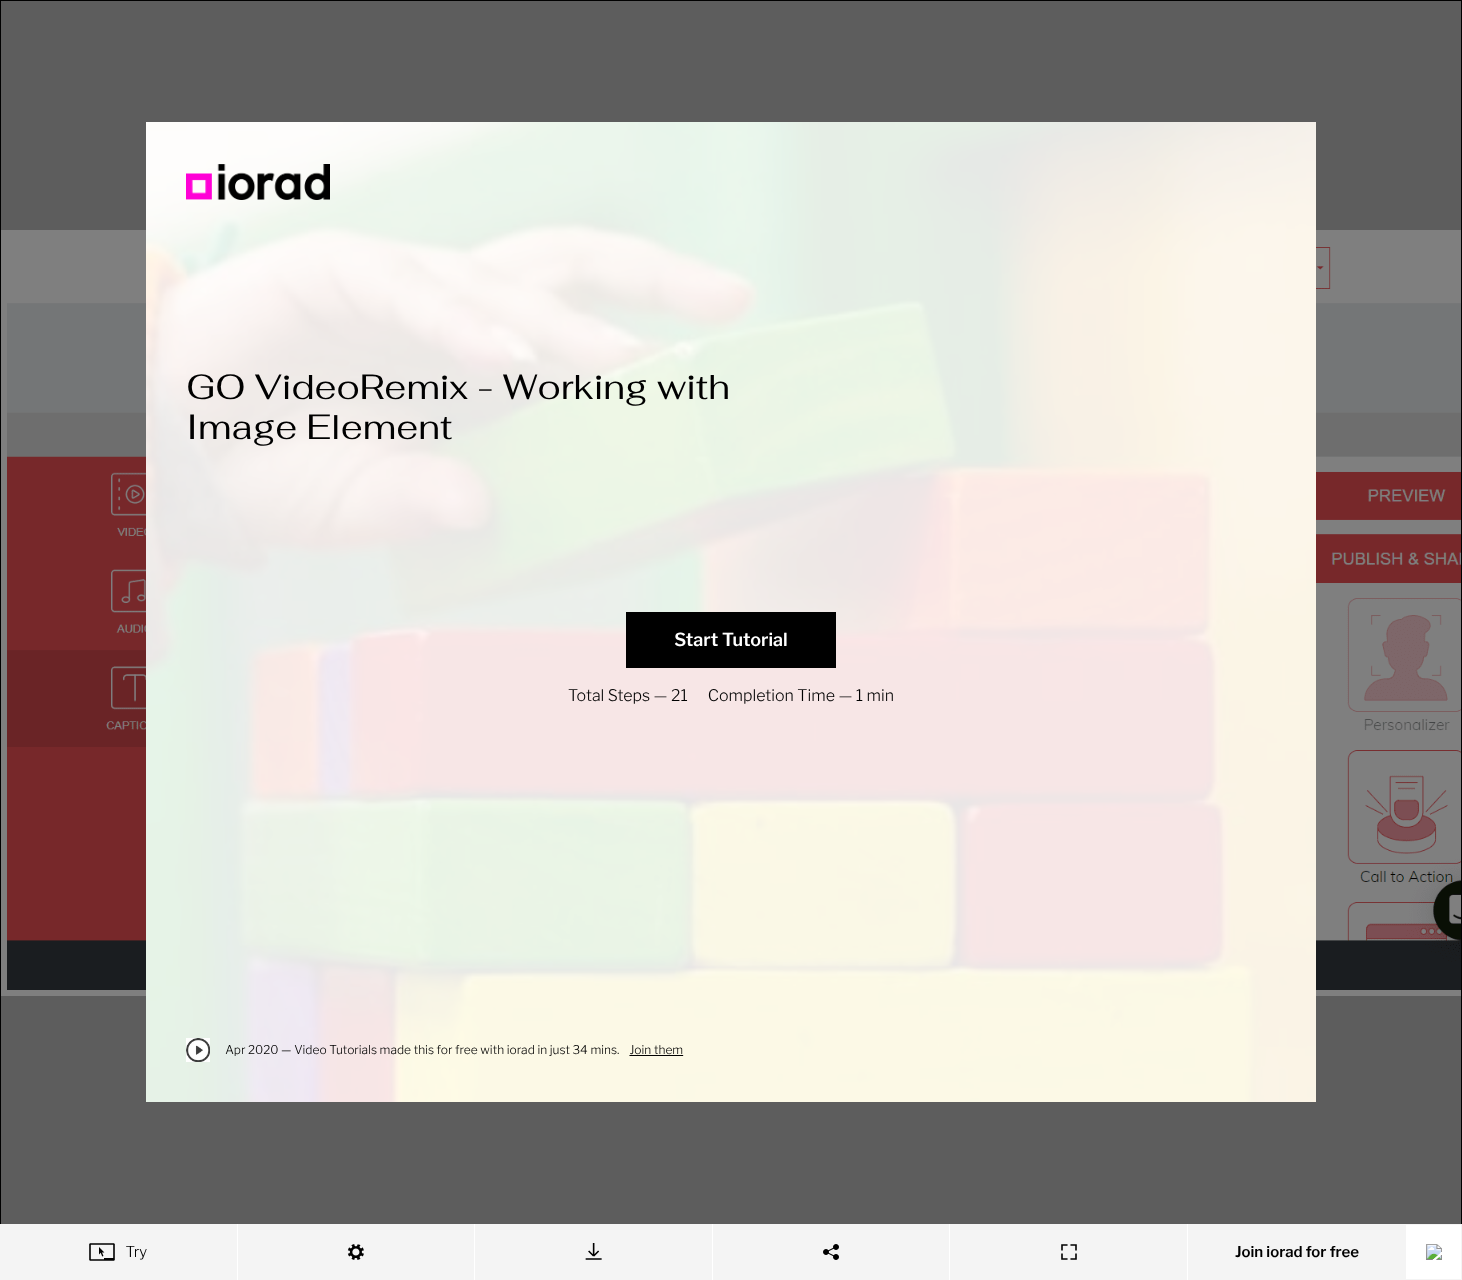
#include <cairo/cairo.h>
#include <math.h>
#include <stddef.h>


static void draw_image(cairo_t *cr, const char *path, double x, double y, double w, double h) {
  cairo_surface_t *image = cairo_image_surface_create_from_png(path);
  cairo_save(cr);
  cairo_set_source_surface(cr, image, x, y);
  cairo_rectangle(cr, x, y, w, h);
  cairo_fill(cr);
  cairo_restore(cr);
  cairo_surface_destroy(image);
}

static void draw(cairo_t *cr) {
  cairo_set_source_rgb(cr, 1, 1, 1);
  cairo_paint(cr);
  draw_image(cr, "images/1.png", 0, 0, 1462, 1280);
}

int main(void) {
  cairo_surface_t *surface = cairo_image_surface_create(CAIRO_FORMAT_RGB24, 1462, 1280);
  cairo_t *cr = cairo_create(surface);
  cairo_font_options_t *options = cairo_font_options_create();
  cairo_font_options_set_hint_metrics(options, CAIRO_HINT_METRICS_OFF);
  cairo_font_options_set_hint_style(options, CAIRO_HINT_STYLE_NONE);
  cairo_set_font_options(cr, options);
  cairo_set_miter_limit(cr, 4);
  draw(cr);
  cairo_surface_write_to_png(surface, "out.png");
  cairo_font_options_destroy(options);
  cairo_destroy(cr);
  cairo_surface_destroy(surface);
  return 0;
}
